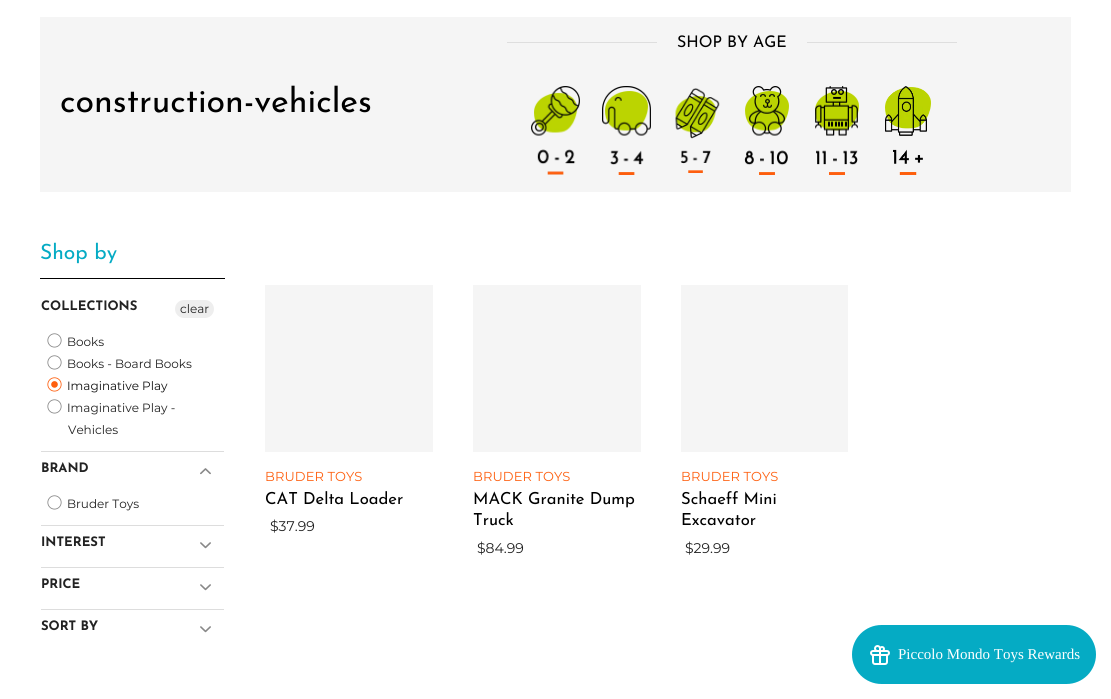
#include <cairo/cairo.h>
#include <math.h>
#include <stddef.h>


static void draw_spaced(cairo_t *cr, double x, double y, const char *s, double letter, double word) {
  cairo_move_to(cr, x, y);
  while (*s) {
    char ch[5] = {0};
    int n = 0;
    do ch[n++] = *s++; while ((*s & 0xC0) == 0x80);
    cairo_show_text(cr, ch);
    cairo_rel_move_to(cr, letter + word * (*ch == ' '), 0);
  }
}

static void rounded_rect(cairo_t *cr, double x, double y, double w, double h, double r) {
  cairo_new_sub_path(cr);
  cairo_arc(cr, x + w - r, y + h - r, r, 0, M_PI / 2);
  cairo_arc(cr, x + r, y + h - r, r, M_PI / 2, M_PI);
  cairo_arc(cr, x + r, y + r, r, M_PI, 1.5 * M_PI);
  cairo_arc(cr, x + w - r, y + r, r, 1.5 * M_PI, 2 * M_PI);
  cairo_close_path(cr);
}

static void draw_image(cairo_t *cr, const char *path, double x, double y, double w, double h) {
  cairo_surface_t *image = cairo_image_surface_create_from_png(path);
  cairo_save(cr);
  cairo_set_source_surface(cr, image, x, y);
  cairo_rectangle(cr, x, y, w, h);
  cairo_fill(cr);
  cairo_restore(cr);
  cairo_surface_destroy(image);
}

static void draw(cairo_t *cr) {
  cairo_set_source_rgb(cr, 1, 1, 1);
  cairo_paint(cr);
  cairo_set_source_rgb(cr, 245 / 255.0, 245 / 255.0, 245 / 255.0);
  cairo_rectangle(cr, 40, 17, 1031, 175);
  cairo_fill(cr);
  cairo_set_source_rgb(cr, 222 / 255.0, 222 / 255.0, 222 / 255.0);
  cairo_rectangle(cr, 507, 42, 150, 1);
  cairo_fill(cr);
  cairo_rectangle(cr, 807, 42, 150, 1);
  cairo_fill(cr);
  draw_image(cr, "images/1.png", 531, 86, 49, 89);
  draw_image(cr, "images/2.png", 602, 86, 49, 89);
  draw_image(cr, "images/3.png", 675, 88, 45, 85);
  draw_image(cr, "images/4.png", 744, 86, 45, 89);
  draw_image(cr, "images/5.png", 815, 86, 44, 89);
  draw_image(cr, "images/6.png", 885, 86, 46, 89);
  cairo_set_source_rgb(cr, 0, 0, 0);
  cairo_rectangle(cr, 40, 278, 185, 1);
  cairo_fill(cr);
  cairo_set_source_rgb(cr, 238 / 255.0, 238 / 255.0, 238 / 255.0);
  rounded_rect(cr, 175, 300, 39, 18, 9);
  cairo_fill(cr);
  draw_image(cr, "images/7.png", 47, 333, 15, 15);
  draw_image(cr, "images/7.png", 47, 355, 15, 15);
  draw_image(cr, "images/8.png", 47, 377, 15, 15);
  draw_image(cr, "images/7.png", 47, 399, 15, 15);
  cairo_set_source_rgb(cr, 221 / 255.0, 221 / 255.0, 221 / 255.0);
  cairo_rectangle(cr, 41, 451, 183, 1);
  cairo_fill(cr);
  draw_image(cr, "images/9.png", 200, 468, 11, 7);
  draw_image(cr, "images/7.png", 47, 495, 15, 15);
  cairo_rectangle(cr, 41, 525, 183, 1);
  cairo_fill(cr);
  draw_image(cr, "images/10.png", 200, 542, 11, 7);
  cairo_rectangle(cr, 41, 567, 183, 1);
  cairo_fill(cr);
  draw_image(cr, "images/10.png", 200, 584, 11, 7);
  cairo_rectangle(cr, 41, 609, 183, 1);
  cairo_fill(cr);
  draw_image(cr, "images/10.png", 200, 626, 11, 7);
  cairo_set_source_rgb(cr, 245 / 255.0, 245 / 255.0, 245 / 255.0);
  cairo_rectangle(cr, 265, 285, 168, 167);
  cairo_fill(cr);
  cairo_rectangle(cr, 473, 285, 168, 167);
  cairo_fill(cr);
  cairo_rectangle(cr, 681, 285, 167, 167);
  cairo_fill(cr);
  cairo_set_source_rgb(cr, 5 / 255.0, 171 / 255.0, 196 / 255.0);
  rounded_rect(cr, 852, 625, 244, 59, 29.5);
  cairo_fill(cr);
  draw_image(cr, "images/11.png", 870, 645, 20, 20);
  cairo_select_font_face(cr, "Josefin Sans", CAIRO_FONT_SLANT_NORMAL, CAIRO_FONT_WEIGHT_NORMAL);
  cairo_set_font_size(cr, 16);
  cairo_set_source_rgb(cr, 0, 0, 0);
  cairo_move_to(cr, 677, 47);
  cairo_show_text(cr, "SHOP BY AGE");
  cairo_set_font_size(cr, 34);
  cairo_move_to(cr, 60, 112);
  cairo_show_text(cr, "construction-vehicles");
  cairo_set_font_size(cr, 21);
  cairo_set_source_rgb(cr, 5 / 255.0, 171 / 255.0, 196 / 255.0);
  cairo_move_to(cr, 40, 259);
  cairo_show_text(cr, "Shop by");
  cairo_select_font_face(cr, "Josefin Sans", CAIRO_FONT_SLANT_NORMAL, CAIRO_FONT_WEIGHT_BOLD);
  cairo_set_font_size(cr, 13);
  cairo_set_source_rgb(cr, 34 / 255.0, 34 / 255.0, 34 / 255.0);
  cairo_move_to(cr, 41, 310);
  cairo_show_text(cr, "COLLECTIONS");
  cairo_select_font_face(cr, "Montserrat Thin", CAIRO_FONT_SLANT_NORMAL, CAIRO_FONT_WEIGHT_NORMAL);
  cairo_set_font_size(cr, 12);
  cairo_move_to(cr, 180, 313);
  cairo_show_text(cr, "clear");
  cairo_move_to(cr, 67, 346);
  cairo_show_text(cr, "Books");
  cairo_move_to(cr, 67, 368);
  cairo_show_text(cr, "Books - Board Books");
  cairo_set_source_rgb(cr, 17 / 255.0, 17 / 255.0, 17 / 255.0);
  cairo_move_to(cr, 67, 390);
  cairo_show_text(cr, "Imaginative Play");
  cairo_set_source_rgb(cr, 34 / 255.0, 34 / 255.0, 34 / 255.0);
  cairo_move_to(cr, 67, 412);
  cairo_show_text(cr, "Imaginative Play -");
  cairo_move_to(cr, 68, 434);
  cairo_show_text(cr, "Vehicles");
  cairo_select_font_face(cr, "Josefin Sans", CAIRO_FONT_SLANT_NORMAL, CAIRO_FONT_WEIGHT_BOLD);
  cairo_set_font_size(cr, 13);
  cairo_move_to(cr, 41, 472);
  cairo_show_text(cr, "BRAND");
  cairo_select_font_face(cr, "Montserrat Thin", CAIRO_FONT_SLANT_NORMAL, CAIRO_FONT_WEIGHT_NORMAL);
  cairo_set_font_size(cr, 12);
  cairo_move_to(cr, 67, 508);
  cairo_show_text(cr, "Bruder Toys");
  cairo_select_font_face(cr, "Josefin Sans", CAIRO_FONT_SLANT_NORMAL, CAIRO_FONT_WEIGHT_BOLD);
  cairo_set_font_size(cr, 13);
  cairo_move_to(cr, 41, 546);
  cairo_show_text(cr, "INTEREST");
  cairo_move_to(cr, 41, 588);
  cairo_show_text(cr, "PRICE");
  cairo_move_to(cr, 41, 630);
  cairo_show_text(cr, "SORT BY");
  cairo_select_font_face(cr, "Montserrat Thin", CAIRO_FONT_SLANT_NORMAL, CAIRO_FONT_WEIGHT_NORMAL);
  cairo_set_source_rgb(cr, 254 / 255.0, 95 / 255.0, 15 / 255.0);
  draw_spaced(cr, 265, 481, "BRUDER TOYS", 0.1, 0);
  cairo_select_font_face(cr, "Josefin Sans", CAIRO_FONT_SLANT_NORMAL, CAIRO_FONT_WEIGHT_NORMAL);
  cairo_set_font_size(cr, 16.6);
  cairo_set_source_rgb(cr, 0, 0, 0);
  cairo_move_to(cr, 265, 504);
  cairo_show_text(cr, "CAT Delta Loader");
  cairo_select_font_face(cr, "Montserrat Thin", CAIRO_FONT_SLANT_NORMAL, CAIRO_FONT_WEIGHT_NORMAL);
  cairo_set_font_size(cr, 14);
  cairo_set_source_rgb(cr, 34 / 255.0, 34 / 255.0, 34 / 255.0);
  cairo_move_to(cr, 270, 531);
  cairo_show_text(cr, "$37.99");
  cairo_set_font_size(cr, 13);
  cairo_set_source_rgb(cr, 254 / 255.0, 95 / 255.0, 15 / 255.0);
  draw_spaced(cr, 473, 481, "BRUDER TOYS", 0.1, 0);
  cairo_select_font_face(cr, "Josefin Sans", CAIRO_FONT_SLANT_NORMAL, CAIRO_FONT_WEIGHT_NORMAL);
  cairo_set_font_size(cr, 16.6);
  cairo_set_source_rgb(cr, 0, 0, 0);
  cairo_move_to(cr, 473, 504);
  cairo_show_text(cr, "MACK Granite Dump");
  cairo_move_to(cr, 473, 525);
  cairo_show_text(cr, "Truck");
  cairo_select_font_face(cr, "Montserrat Thin", CAIRO_FONT_SLANT_NORMAL, CAIRO_FONT_WEIGHT_NORMAL);
  cairo_set_font_size(cr, 14);
  cairo_set_source_rgb(cr, 34 / 255.0, 34 / 255.0, 34 / 255.0);
  cairo_move_to(cr, 477, 553);
  cairo_show_text(cr, "$84.99");
  cairo_set_font_size(cr, 13);
  cairo_set_source_rgb(cr, 254 / 255.0, 95 / 255.0, 15 / 255.0);
  draw_spaced(cr, 681, 481, "BRUDER TOYS", 0.1, 0);
  cairo_select_font_face(cr, "Josefin Sans", CAIRO_FONT_SLANT_NORMAL, CAIRO_FONT_WEIGHT_NORMAL);
  cairo_set_font_size(cr, 16.6);
  cairo_set_source_rgb(cr, 0, 0, 0);
  cairo_move_to(cr, 681, 504);
  cairo_show_text(cr, "Schaeff Mini");
  cairo_move_to(cr, 681, 525);
  cairo_show_text(cr, "Excavator");
  cairo_select_font_face(cr, "Montserrat Thin", CAIRO_FONT_SLANT_NORMAL, CAIRO_FONT_WEIGHT_NORMAL);
  cairo_set_font_size(cr, 14);
  cairo_set_source_rgb(cr, 34 / 255.0, 34 / 255.0, 34 / 255.0);
  cairo_move_to(cr, 685, 553);
  cairo_show_text(cr, "$29.99");
  cairo_select_font_face(cr, "Liberation Serif", CAIRO_FONT_SLANT_NORMAL, CAIRO_FONT_WEIGHT_NORMAL);
  cairo_set_font_size(cr, 15);
  cairo_set_source_rgb(cr, 1, 1, 1);
  cairo_move_to(cr, 898, 659);
  cairo_show_text(cr, "Piccolo Mondo Toys Rewards");
}

int main(void) {
  cairo_surface_t *surface = cairo_image_surface_create(CAIRO_FORMAT_RGB24, 1111, 699);
  cairo_t *cr = cairo_create(surface);
  cairo_font_options_t *options = cairo_font_options_create();
  cairo_font_options_set_hint_metrics(options, CAIRO_HINT_METRICS_OFF);
  cairo_font_options_set_hint_style(options, CAIRO_HINT_STYLE_NONE);
  cairo_set_font_options(cr, options);
  cairo_set_miter_limit(cr, 4);
  draw(cr);
  cairo_surface_write_to_png(surface, "out.png");
  cairo_font_options_destroy(options);
  cairo_destroy(cr);
  cairo_surface_destroy(surface);
  return 0;
}
